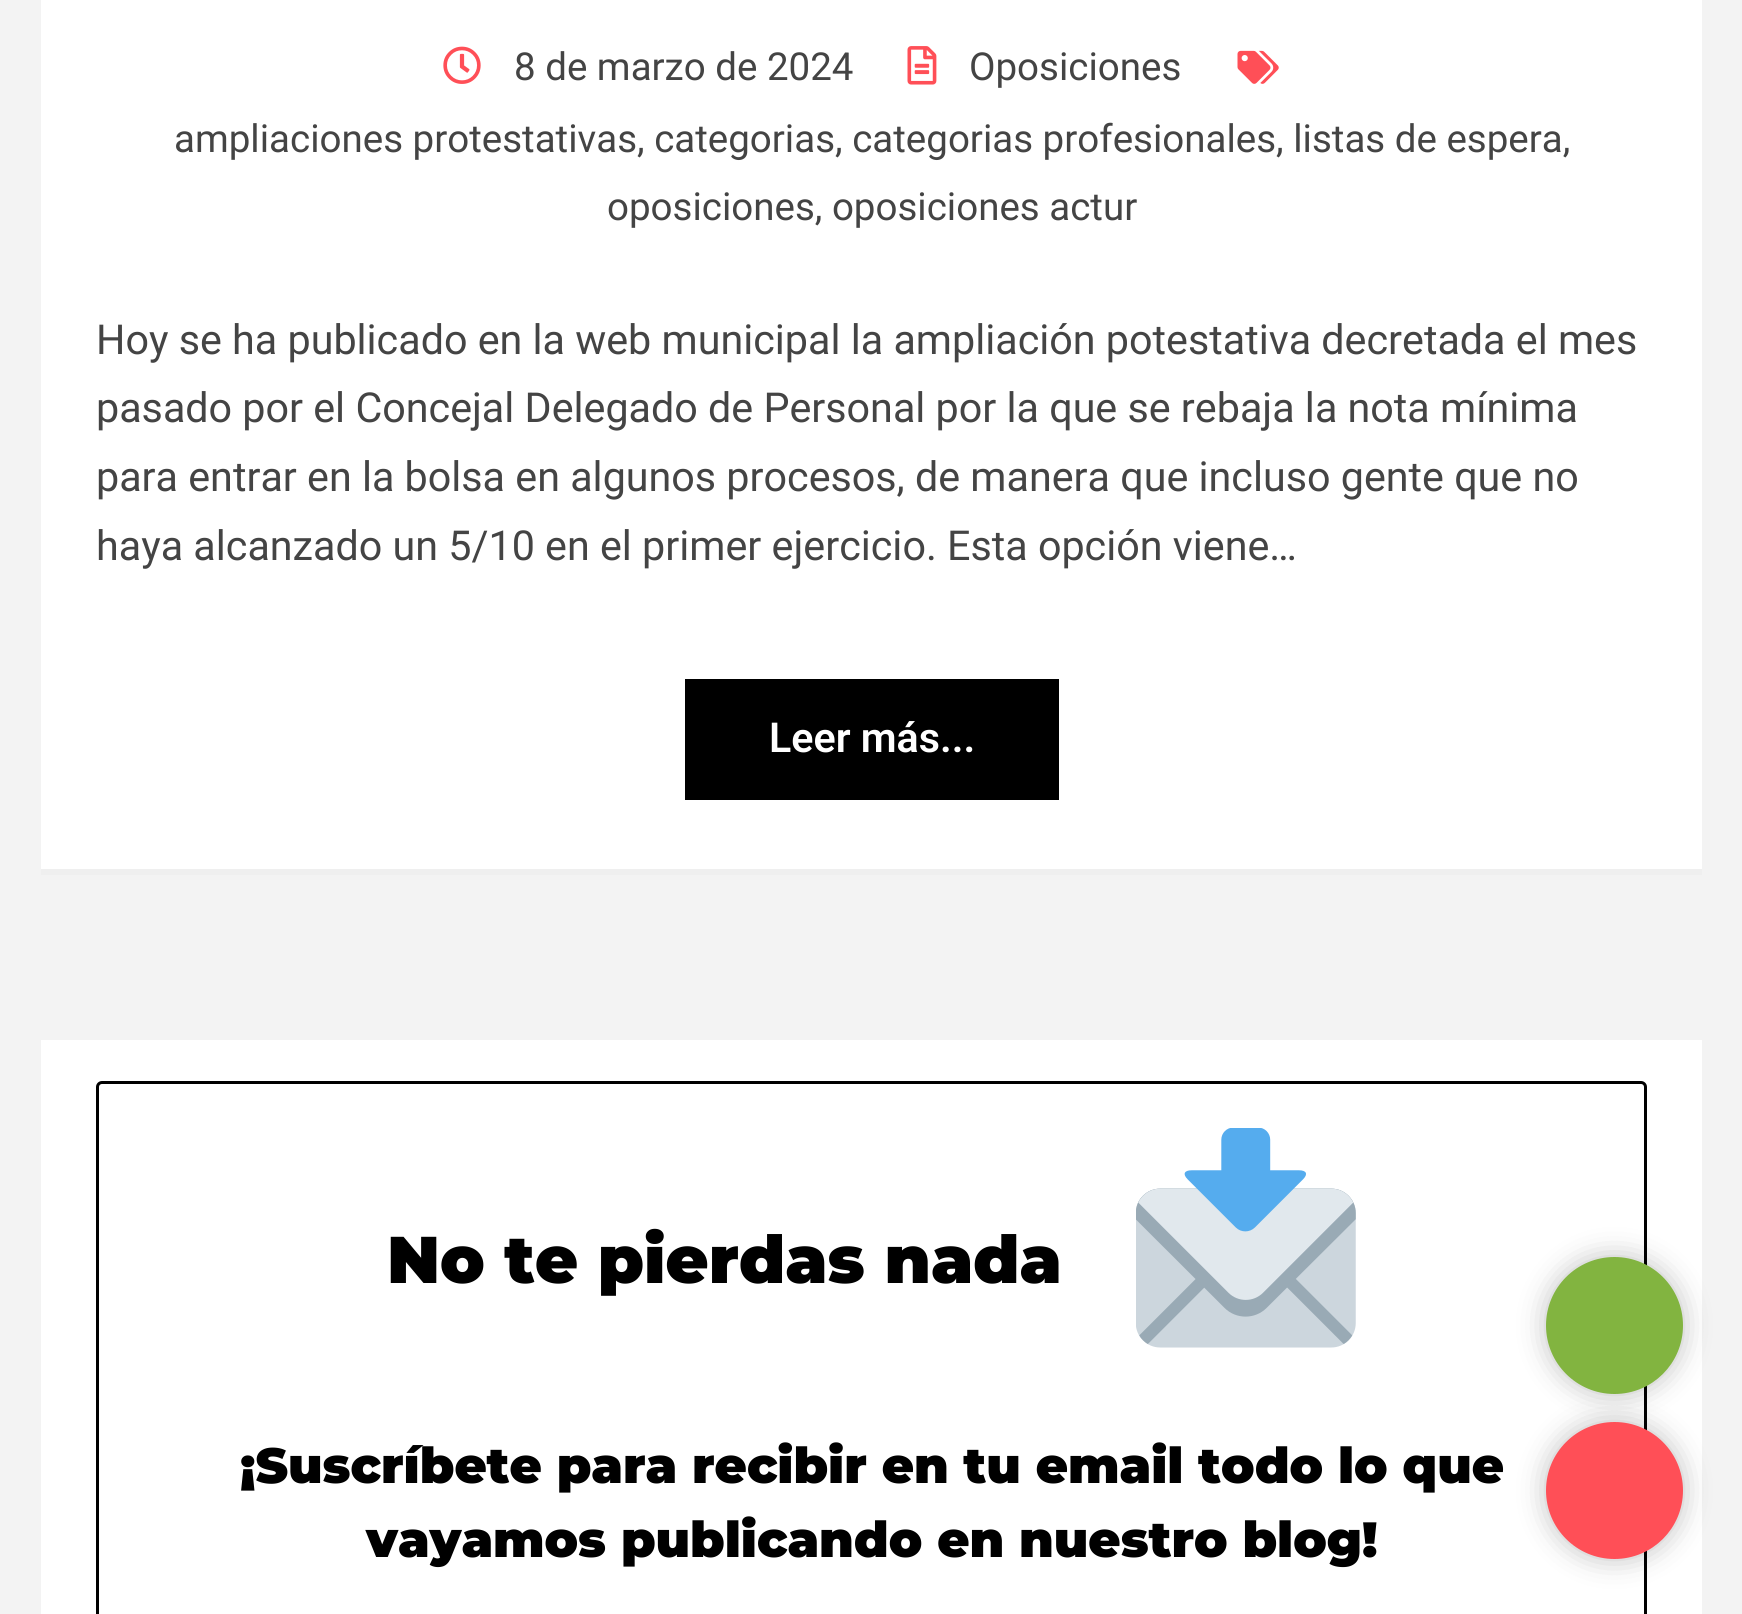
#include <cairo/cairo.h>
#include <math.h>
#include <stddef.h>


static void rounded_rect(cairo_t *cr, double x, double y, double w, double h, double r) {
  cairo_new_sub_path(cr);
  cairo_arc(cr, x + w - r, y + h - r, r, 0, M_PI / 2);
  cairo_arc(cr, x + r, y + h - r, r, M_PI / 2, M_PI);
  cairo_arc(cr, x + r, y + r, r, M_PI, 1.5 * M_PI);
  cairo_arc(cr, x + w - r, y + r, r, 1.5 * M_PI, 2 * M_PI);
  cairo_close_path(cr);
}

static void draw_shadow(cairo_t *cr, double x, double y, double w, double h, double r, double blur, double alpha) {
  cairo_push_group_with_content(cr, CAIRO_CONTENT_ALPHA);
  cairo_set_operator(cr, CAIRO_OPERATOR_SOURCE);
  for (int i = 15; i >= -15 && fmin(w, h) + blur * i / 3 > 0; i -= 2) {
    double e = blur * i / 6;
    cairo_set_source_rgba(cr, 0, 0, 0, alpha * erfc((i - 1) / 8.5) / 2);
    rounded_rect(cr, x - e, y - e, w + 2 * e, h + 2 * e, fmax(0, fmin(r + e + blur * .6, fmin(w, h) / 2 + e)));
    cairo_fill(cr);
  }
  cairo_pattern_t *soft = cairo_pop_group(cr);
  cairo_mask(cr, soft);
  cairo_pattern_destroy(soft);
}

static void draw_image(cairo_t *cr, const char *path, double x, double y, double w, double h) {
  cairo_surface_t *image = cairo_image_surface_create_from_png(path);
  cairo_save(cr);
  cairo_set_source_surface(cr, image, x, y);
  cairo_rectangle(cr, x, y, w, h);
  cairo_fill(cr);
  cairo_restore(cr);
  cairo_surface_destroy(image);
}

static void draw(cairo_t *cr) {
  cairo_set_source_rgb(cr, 243 / 255.0, 243 / 255.0, 243 / 255.0);
  cairo_paint(cr);
  cairo_set_source_rgb(cr, 1, 1, 1);
  cairo_rectangle(cr, 41, 0, 1661, 869);
  cairo_fill(cr);
  cairo_set_source_rgb(cr, 239 / 255.0, 239 / 255.0, 239 / 255.0);
  cairo_rectangle(cr, 41, 869, 1661, 6);
  cairo_fill(cr);
  draw_image(cr, "images/1.png", 443, 46, 38, 38);
  draw_image(cr, "images/2.png", 907, 46, 30, 39);
  draw_image(cr, "images/3.png", 1237, 50, 42, 34);
  cairo_set_source_rgb(cr, 0, 0, 0);
  cairo_rectangle(cr, 685, 679, 374, 121);
  cairo_fill(cr);
  cairo_set_source_rgb(cr, 1, 1, 1);
  cairo_rectangle(cr, 41, 1040, 1661, 574);
  cairo_fill(cr);
  rounded_rect(cr, 97.5, 1082.5, 1548, 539, 4.5);
  cairo_set_source_rgb(cr, 0, 0, 0);
  cairo_set_line_width(cr, 3);
  cairo_stroke(cr);
  draw_image(cr, "images/4.png", 1136, 1128, 220, 220);
  cairo_set_source_rgb(cr, 0, 0, 0);
  draw_shadow(cr, 1546, 1257, 137, 137, 68.5, 14, 0.25);
  cairo_set_source_rgb(cr, 130 / 255.0, 180 / 255.0, 64 / 255.0);
  cairo_arc(cr, 1614.5, 1325.5, 65.5, 0, 2 * M_PI);
  cairo_fill_preserve(cr);
  cairo_set_line_width(cr, 6);
  cairo_stroke(cr);
  cairo_set_source_rgb(cr, 0, 0, 0);
  draw_shadow(cr, 1546, 1422, 137, 137, 68.5, 14, 0.25);
  cairo_set_source_rgb(cr, 1, 79 / 255.0, 87 / 255.0);
  cairo_arc(cr, 1614.5, 1490.5, 65.5, 0, 2 * M_PI);
  cairo_fill_preserve(cr);
  cairo_stroke(cr);
  cairo_select_font_face(cr, "Roboto", CAIRO_FONT_SLANT_NORMAL, CAIRO_FONT_WEIGHT_NORMAL);
  cairo_set_font_size(cr, 38.5);
  cairo_set_source_rgb(cr, 68 / 255.0, 68 / 255.0, 68 / 255.0);
  cairo_move_to(cr, 514, 80);
  cairo_show_text(cr, "8 de marzo de 2024");
  cairo_move_to(cr, 969, 80);
  cairo_show_text(cr, "Oposiciones");
  cairo_move_to(cr, 174, 152);
  cairo_show_text(cr, "ampliaciones protestativas, categorias, categorias profesionales, listas de espera,");
  cairo_move_to(cr, 607, 220);
  cairo_show_text(cr, "oposiciones, oposiciones actur");
  cairo_set_font_size(cr, 41.25);
  cairo_move_to(cr, 96, 354);
  cairo_show_text(cr, "Hoy se ha publicado en la web municipal la ampliación potestativa decretada el mes");
  cairo_move_to(cr, 96, 422);
  cairo_show_text(cr, "pasado por el Concejal Delegado de Personal por la que se rebaja la nota mínima");
  cairo_move_to(cr, 96, 491);
  cairo_show_text(cr, "para entrar en la bolsa en algunos procesos, de manera que incluso gente que no");
  cairo_move_to(cr, 96, 560);
  cairo_show_text(cr, "haya alcanzado un 5/10 en el primer ejercicio. Esta opción viene…");
  cairo_select_font_face(cr, "Roboto SemiBold", CAIRO_FONT_SLANT_NORMAL, CAIRO_FONT_WEIGHT_NORMAL);
  cairo_set_source_rgb(cr, 1, 1, 1);
  cairo_move_to(cr, 769, 752);
  cairo_show_text(cr, "Leer más...");
  cairo_select_font_face(cr, "Montserrat Black", CAIRO_FONT_SLANT_NORMAL, CAIRO_FONT_WEIGHT_NORMAL);
  cairo_set_font_size(cr, 66);
  cairo_set_source_rgb(cr, 0, 0, 0);
  cairo_move_to(cr, 387, 1283);
  cairo_show_text(cr, "No te pierdas nada");
  cairo_set_font_size(cr, 49.5);
  cairo_move_to(cr, 240, 1483);
  cairo_show_text(cr, "¡Suscríbete para recibir en tu email todo lo que");
  cairo_move_to(cr, 366, 1557);
  cairo_show_text(cr, "vayamos publicando en nuestro blog!");
}

int main(void) {
  cairo_surface_t *surface = cairo_image_surface_create(CAIRO_FORMAT_RGB24, 1742, 1614);
  cairo_t *cr = cairo_create(surface);
  cairo_font_options_t *options = cairo_font_options_create();
  cairo_font_options_set_hint_metrics(options, CAIRO_HINT_METRICS_OFF);
  cairo_font_options_set_hint_style(options, CAIRO_HINT_STYLE_NONE);
  cairo_set_font_options(cr, options);
  cairo_set_miter_limit(cr, 4);
  draw(cr);
  cairo_surface_write_to_png(surface, "out.png");
  cairo_font_options_destroy(options);
  cairo_destroy(cr);
  cairo_surface_destroy(surface);
  return 0;
}
